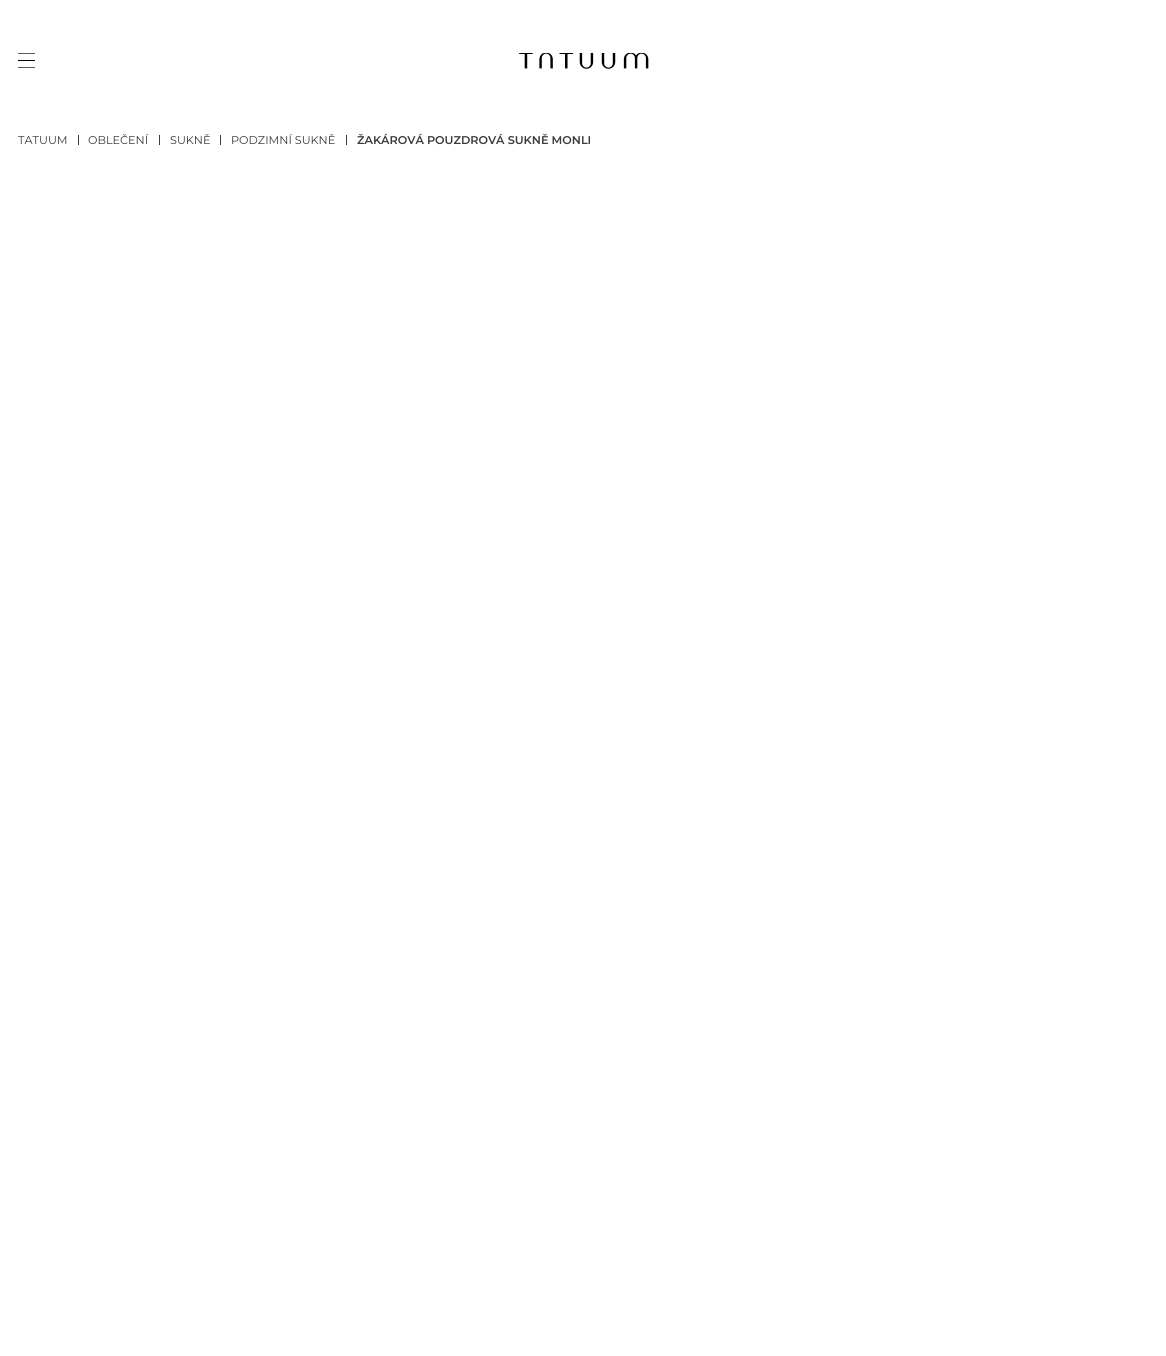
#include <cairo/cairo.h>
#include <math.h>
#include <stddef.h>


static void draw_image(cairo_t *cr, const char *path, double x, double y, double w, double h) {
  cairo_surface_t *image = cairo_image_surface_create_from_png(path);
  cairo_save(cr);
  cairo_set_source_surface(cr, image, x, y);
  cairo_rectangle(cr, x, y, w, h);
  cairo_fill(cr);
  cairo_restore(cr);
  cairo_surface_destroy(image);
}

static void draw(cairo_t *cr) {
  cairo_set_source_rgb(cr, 1, 1, 1);
  cairo_paint(cr);
  cairo_save(cr);
  cairo_rectangle(cr, 18, 53, 17, 15);
  cairo_clip(cr);
  cairo_new_path(cr);
  cairo_move_to(cr, 17.5, 53);
  cairo_line_to(cr, 35, 53);
  cairo_set_source_rgb(cr, 0, 0, 0);
  cairo_set_line_width(cr, 1.3);
  cairo_stroke(cr);
  cairo_restore(cr);
  cairo_set_source_rgb(cr, 0, 0, 0);
  cairo_rectangle(cr, 18, 60, 17, 1);
  cairo_fill(cr);
  cairo_save(cr);
  cairo_rectangle(cr, 18, 53, 17, 15);
  cairo_clip(cr);
  cairo_new_path(cr);
  cairo_move_to(cr, 17.5, 68);
  cairo_line_to(cr, 35, 68);
  cairo_set_line_width(cr, 1.3);
  cairo_stroke(cr);
  cairo_restore(cr);
  draw_image(cr, "images/1.png", 519, 53, 130, 16);
  cairo_set_source_rgb(cr, 59 / 255.0, 59 / 255.0, 59 / 255.0);
  cairo_rectangle(cr, 78, 135, 1, 10);
  cairo_fill(cr);
  cairo_rectangle(cr, 159, 135, 1, 10);
  cairo_fill(cr);
  cairo_rectangle(cr, 220, 135, 1, 10);
  cairo_fill(cr);
  cairo_rectangle(cr, 346, 135, 1, 10);
  cairo_fill(cr);
  cairo_select_font_face(cr, "Montserrat Thin", CAIRO_FONT_SLANT_NORMAL, CAIRO_FONT_WEIGHT_NORMAL);
  cairo_set_font_size(cr, 11.25);
  cairo_move_to(cr, 18, 144);
  cairo_show_text(cr, "TATUUM");
  cairo_move_to(cr, 88, 144);
  cairo_show_text(cr, "OBLEČENÍ");
  cairo_move_to(cr, 170, 144);
  cairo_show_text(cr, "SUKNĚ");
  cairo_move_to(cr, 231, 144);
  cairo_show_text(cr, "PODZIMNÍ SUKNĚ");
  cairo_select_font_face(cr, "Montserrat SemiBold", CAIRO_FONT_SLANT_NORMAL, CAIRO_FONT_WEIGHT_NORMAL);
  cairo_move_to(cr, 357, 144);
  cairo_show_text(cr, "ŽAKÁROVÁ POUZDROVÁ SUKNĚ MONLI");
}

int main(void) {
  cairo_surface_t *surface = cairo_image_surface_create(CAIRO_FORMAT_RGB24, 1166, 1356);
  cairo_t *cr = cairo_create(surface);
  cairo_font_options_t *options = cairo_font_options_create();
  cairo_font_options_set_hint_metrics(options, CAIRO_HINT_METRICS_OFF);
  cairo_font_options_set_hint_style(options, CAIRO_HINT_STYLE_NONE);
  cairo_set_font_options(cr, options);
  cairo_set_miter_limit(cr, 4);
  draw(cr);
  cairo_surface_write_to_png(surface, "out.png");
  cairo_font_options_destroy(options);
  cairo_destroy(cr);
  cairo_surface_destroy(surface);
  return 0;
}
